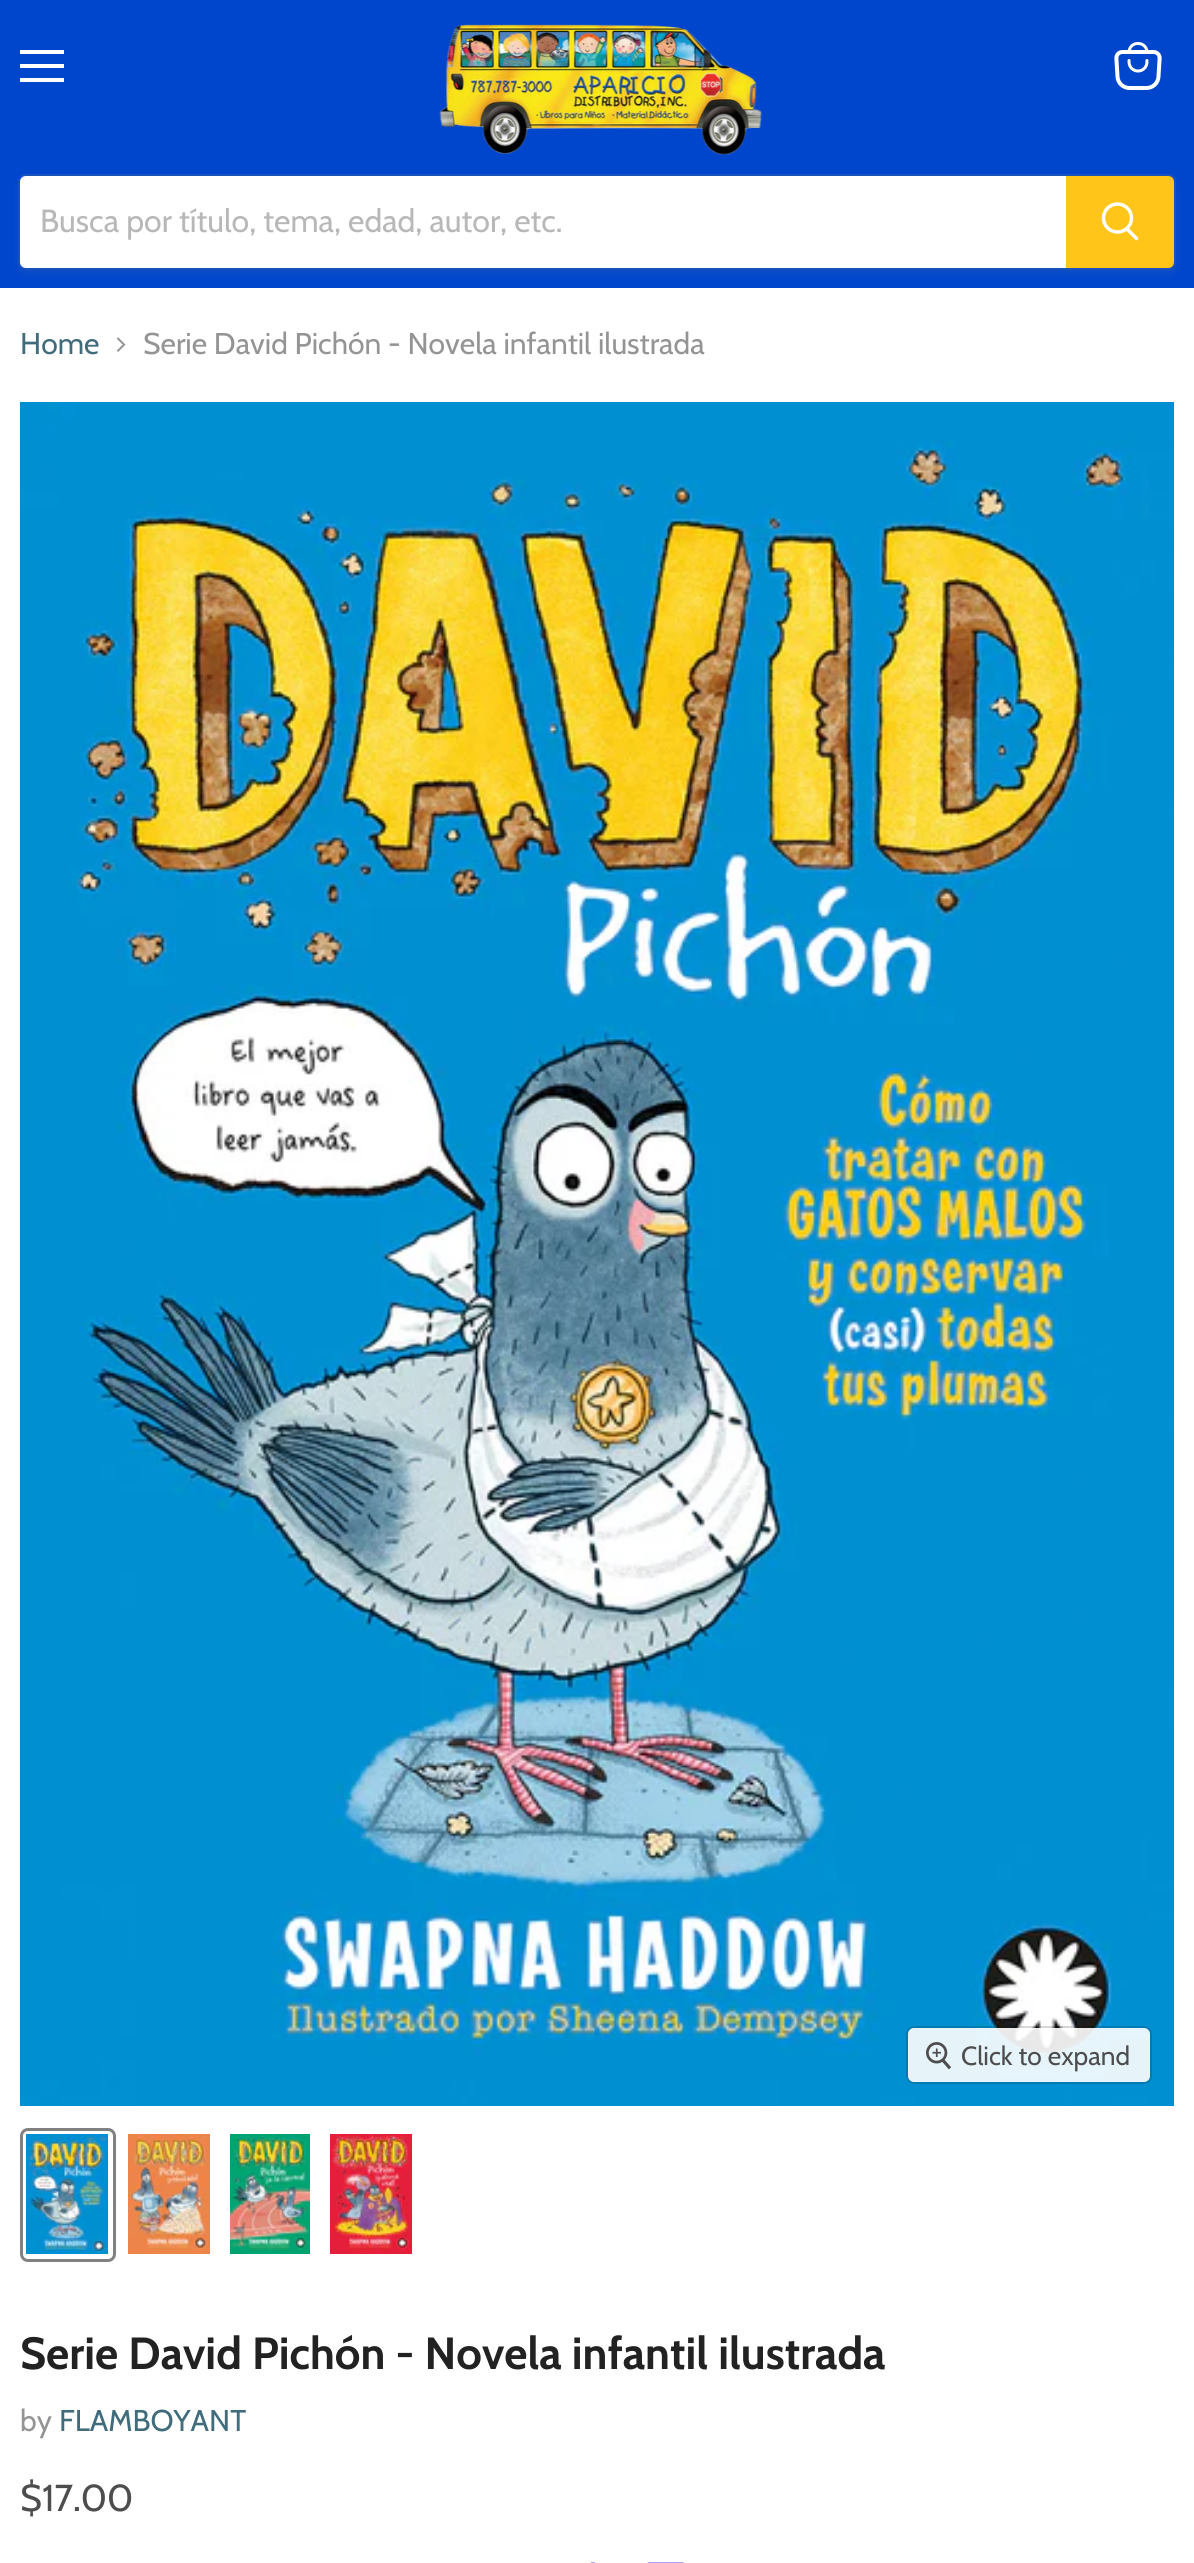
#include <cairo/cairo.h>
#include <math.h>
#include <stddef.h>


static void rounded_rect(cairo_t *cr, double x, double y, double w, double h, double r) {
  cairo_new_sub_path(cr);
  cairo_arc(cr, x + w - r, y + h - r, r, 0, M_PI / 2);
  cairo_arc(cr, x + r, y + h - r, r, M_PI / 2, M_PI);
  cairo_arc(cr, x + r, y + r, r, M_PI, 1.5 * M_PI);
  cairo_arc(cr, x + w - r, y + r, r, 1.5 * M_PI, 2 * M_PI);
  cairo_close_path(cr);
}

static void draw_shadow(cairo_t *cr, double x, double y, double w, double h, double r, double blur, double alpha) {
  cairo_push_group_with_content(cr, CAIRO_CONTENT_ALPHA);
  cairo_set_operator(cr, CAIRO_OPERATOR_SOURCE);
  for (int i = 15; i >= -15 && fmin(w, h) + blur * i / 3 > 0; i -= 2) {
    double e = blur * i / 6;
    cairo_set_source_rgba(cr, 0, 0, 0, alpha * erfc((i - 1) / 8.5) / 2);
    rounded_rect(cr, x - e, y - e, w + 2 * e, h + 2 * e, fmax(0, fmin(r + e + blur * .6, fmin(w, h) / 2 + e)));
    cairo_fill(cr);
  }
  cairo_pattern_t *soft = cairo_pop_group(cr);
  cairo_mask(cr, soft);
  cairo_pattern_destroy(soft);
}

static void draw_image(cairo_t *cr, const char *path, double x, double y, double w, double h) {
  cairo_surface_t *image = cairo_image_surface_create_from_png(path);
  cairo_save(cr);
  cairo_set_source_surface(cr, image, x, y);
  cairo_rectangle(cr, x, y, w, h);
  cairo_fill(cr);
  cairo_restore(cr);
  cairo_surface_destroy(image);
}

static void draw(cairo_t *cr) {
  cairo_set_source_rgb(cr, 1, 1, 1);
  cairo_paint(cr);
  cairo_set_source_rgb(cr, 0, 70 / 255.0, 205 / 255.0);
  cairo_rectangle(cr, 0, 0, 1194, 288);
  cairo_fill(cr);
  cairo_set_source_rgb(cr, 1, 1, 1);
  cairo_rectangle(cr, 20, 50, 44, 4);
  cairo_fill(cr);
  cairo_rectangle(cr, 20, 64, 44, 4);
  cairo_fill(cr);
  cairo_rectangle(cr, 20, 78, 44, 4);
  cairo_fill(cr);
  draw_image(cr, "images/1.png", 1114, 42, 48, 48);
  draw_image(cr, "images/2.png", 439, 24, 323, 131);
  cairo_save(cr);
  cairo_set_fill_rule(cr, CAIRO_FILL_RULE_EVEN_ODD);
  cairo_new_path(cr);
  cairo_move_to(cr, 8, 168);
  cairo_line_to(cr, 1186, 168);
  cairo_line_to(cr, 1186, 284);
  cairo_line_to(cr, 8, 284);
  cairo_close_path(cr);
  cairo_move_to(cr, 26, 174);
  cairo_line_to(cr, 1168, 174);
  cairo_curve_to(cr, 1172.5, 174, 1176, 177.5, 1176, 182);
  cairo_line_to(cr, 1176, 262);
  cairo_curve_to(cr, 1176, 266.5, 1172.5, 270, 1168, 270);
  cairo_line_to(cr, 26, 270);
  cairo_curve_to(cr, 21.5, 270, 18, 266.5, 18, 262);
  cairo_line_to(cr, 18, 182);
  cairo_curve_to(cr, 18, 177.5, 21.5, 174, 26, 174);
  cairo_close_path(cr);
  cairo_clip(cr);
  cairo_set_source_rgb(cr, 128 / 255.0, 128 / 255.0, 128 / 255.0);
  draw_shadow(cr, 18, 178, 1158, 96, 8, 3, 0.11);
  cairo_restore(cr);
  rounded_rect(cr, 19, 175, 1156, 94, 7);
  cairo_set_source_rgba(cr, 128 / 255.0, 128 / 255.0, 128 / 255.0, 0.2);
  cairo_stroke(cr);
  cairo_set_source_rgb(cr, 1, 1, 1);
  cairo_new_path(cr);
  cairo_move_to(cr, 26, 176);
  cairo_line_to(cr, 1066, 176);
  cairo_line_to(cr, 1066, 268);
  cairo_line_to(cr, 26, 268);
  cairo_curve_to(cr, 22.5, 268, 20, 265.5, 20, 262);
  cairo_line_to(cr, 20, 182);
  cairo_curve_to(cr, 20, 178.5, 22.5, 176, 26, 176);
  cairo_close_path(cr);
  cairo_fill(cr);
  cairo_set_source_rgb(cr, 1, 197 / 255.0, 25 / 255.0);
  cairo_new_path(cr);
  cairo_move_to(cr, 1067, 177);
  cairo_line_to(cr, 1168, 177);
  cairo_curve_to(cr, 1171, 177, 1173, 179, 1173, 182);
  cairo_line_to(cr, 1173, 262);
  cairo_curve_to(cr, 1173, 265, 1171, 267, 1168, 267);
  cairo_line_to(cr, 1067, 267);
  cairo_close_path(cr);
  cairo_fill_preserve(cr);
  cairo_stroke(cr);
  cairo_new_path(cr);
  cairo_move_to(cr, 1136.5, 238.5);
  cairo_line_to(cr, 1127, 229);
  cairo_set_source_rgb(cr, 1, 1, 1);
  cairo_set_line_width(cr, 3.5);
  cairo_set_line_cap(cr, CAIRO_LINE_CAP_ROUND);
  cairo_stroke(cr);
  cairo_arc(cr, 1117.5, 218, 14, 0, 2 * M_PI);
  cairo_set_line_cap(cr, CAIRO_LINE_CAP_BUTT);
  cairo_stroke(cr);
  draw_image(cr, "images/3.png", 116, 337, 10, 15);
  draw_image(cr, "images/4.png", 20, 402, 1154, 1704);
  rounded_rect(cr, 907, 2027, 244, 56, 7);
  cairo_set_source_rgba(cr, 0, 0, 0, 0.15);
  cairo_set_line_width(cr, 2);
  cairo_stroke(cr);
  cairo_set_source_rgba(cr, 1, 1, 1, 0.9);
  rounded_rect(cr, 908, 2028, 242, 54, 6);
  cairo_fill(cr);
  draw_image(cr, "images/5.png", 926, 2042, 26, 28);
  rounded_rect(cr, 21.5, 2129.5, 93, 131, 6.5);
  cairo_set_source_rgb(cr, 129 / 255.0, 129 / 255.0, 129 / 255.0);
  cairo_set_line_width(cr, 3);
  cairo_stroke(cr);
  draw_image(cr, "images/6.png", 26, 2134, 82, 120);
  draw_image(cr, "images/7.png", 128, 2134, 82, 120);
  draw_image(cr, "images/8.png", 230, 2134, 80, 120);
  draw_image(cr, "images/9.png", 330, 2134, 82, 120);
  draw_image(cr, "images/10.png", 590, 2562, 94, 1);
  cairo_select_font_face(cr, "Cabin", CAIRO_FONT_SLANT_NORMAL, CAIRO_FONT_WEIGHT_NORMAL);
  cairo_set_font_size(cr, 32);
  cairo_set_source_rgb(cr, 184 / 255.0, 184 / 255.0, 184 / 255.0);
  cairo_move_to(cr, 40, 232);
  cairo_show_text(cr, "Busca por título, tema, edad, autor, etc.");
  cairo_set_font_size(cr, 30);
  cairo_set_source_rgb(cr, 65 / 255.0, 108 / 255.0, 124 / 255.0);
  cairo_move_to(cr, 20, 354);
  cairo_show_text(cr, "Home");
  cairo_set_source_rgb(cr, 148 / 255.0, 148 / 255.0, 148 / 255.0);
  cairo_move_to(cr, 143, 354);
  cairo_show_text(cr, "Serie David Pichón - Novela infantil ilustrada");
  cairo_set_font_size(cr, 26.25);
  cairo_set_source_rgb(cr, 77 / 255.0, 77 / 255.0, 77 / 255.0);
  cairo_move_to(cr, 961, 2065);
  cairo_show_text(cr, "Click to expand");
  cairo_select_font_face(cr, "Cabin", CAIRO_FONT_SLANT_NORMAL, CAIRO_FONT_WEIGHT_BOLD);
  cairo_set_font_size(cr, 45);
  cairo_set_source_rgb(cr, 34 / 255.0, 34 / 255.0, 34 / 255.0);
  cairo_move_to(cr, 20, 2369);
  cairo_show_text(cr, "Serie David Pichón - Novela infantil ilustrada");
  cairo_select_font_face(cr, "Cabin", CAIRO_FONT_SLANT_NORMAL, CAIRO_FONT_WEIGHT_NORMAL);
  cairo_set_font_size(cr, 30);
  cairo_set_source_rgb(cr, 148 / 255.0, 148 / 255.0, 148 / 255.0);
  cairo_move_to(cr, 20, 2431);
  cairo_show_text(cr, "by");
  cairo_set_source_rgb(cr, 65 / 255.0, 108 / 255.0, 124 / 255.0);
  cairo_move_to(cr, 59, 2431);
  cairo_show_text(cr, "FLAMBOYANT");
  cairo_set_font_size(cr, 37.5);
  cairo_set_source_rgb(cr, 77 / 255.0, 77 / 255.0, 77 / 255.0);
  cairo_move_to(cr, 20, 2511);
  cairo_show_text(cr, "$17.00");
}

int main(void) {
  cairo_surface_t *surface = cairo_image_surface_create(CAIRO_FORMAT_RGB24, 1194, 2563);
  cairo_t *cr = cairo_create(surface);
  cairo_font_options_t *options = cairo_font_options_create();
  cairo_font_options_set_hint_metrics(options, CAIRO_HINT_METRICS_OFF);
  cairo_font_options_set_hint_style(options, CAIRO_HINT_STYLE_NONE);
  cairo_set_font_options(cr, options);
  cairo_set_miter_limit(cr, 4);
  draw(cr);
  cairo_surface_write_to_png(surface, "out.png");
  cairo_font_options_destroy(options);
  cairo_destroy(cr);
  cairo_surface_destroy(surface);
  return 0;
}
